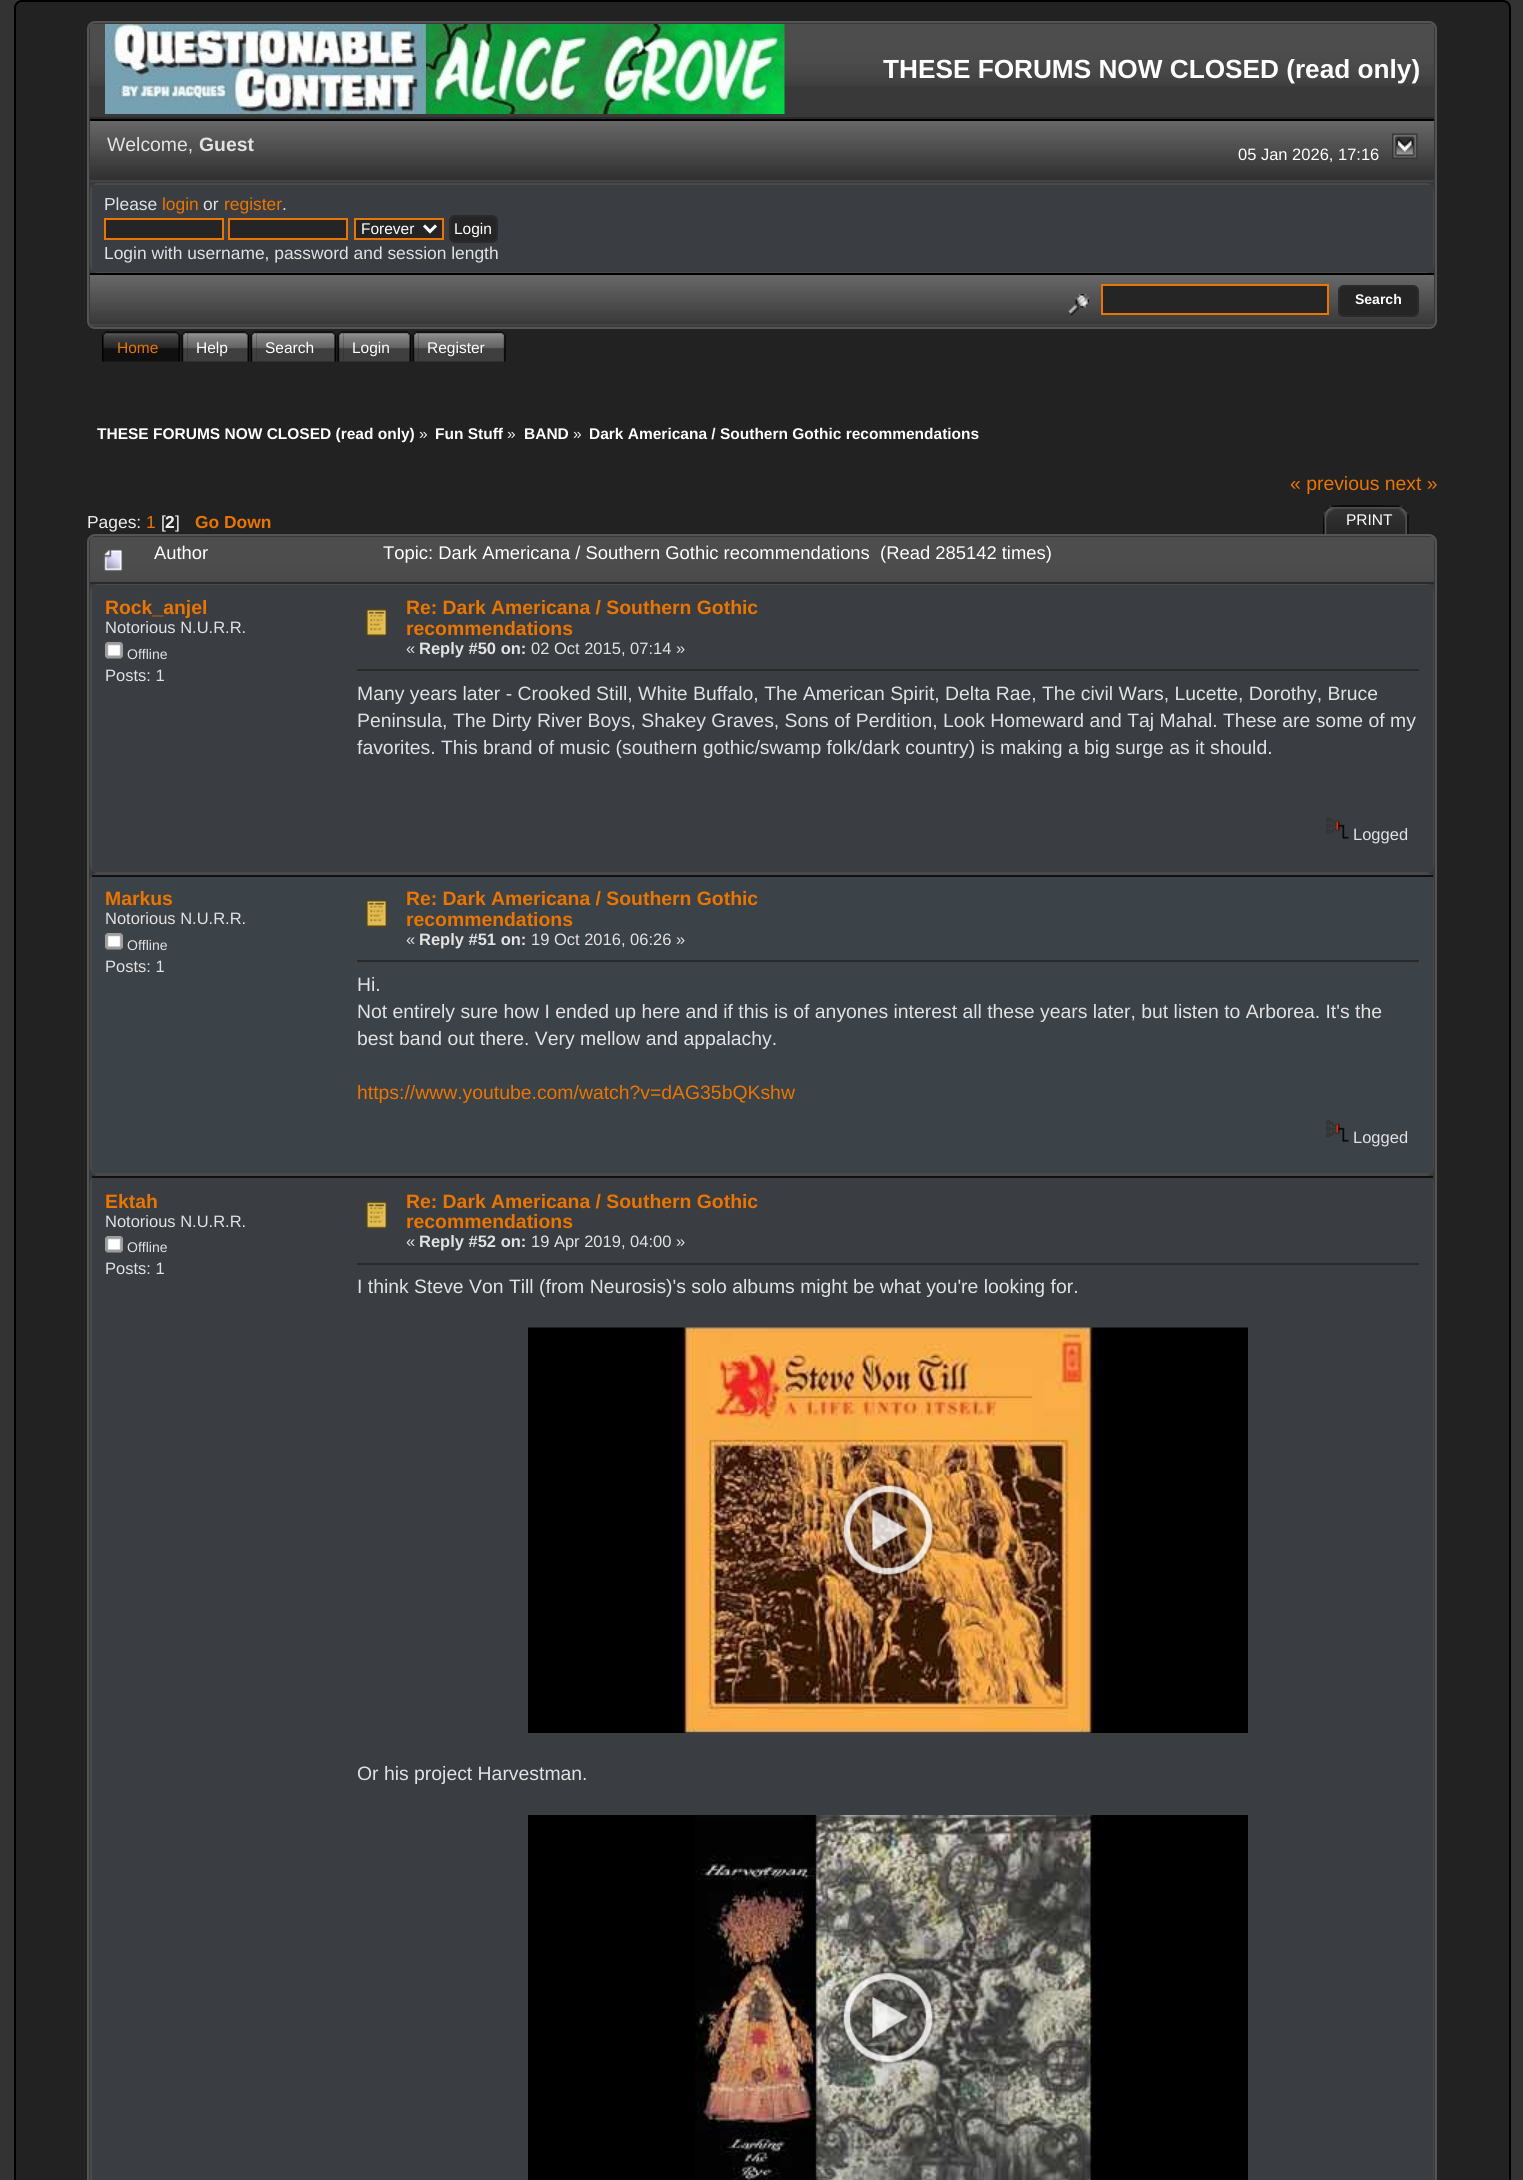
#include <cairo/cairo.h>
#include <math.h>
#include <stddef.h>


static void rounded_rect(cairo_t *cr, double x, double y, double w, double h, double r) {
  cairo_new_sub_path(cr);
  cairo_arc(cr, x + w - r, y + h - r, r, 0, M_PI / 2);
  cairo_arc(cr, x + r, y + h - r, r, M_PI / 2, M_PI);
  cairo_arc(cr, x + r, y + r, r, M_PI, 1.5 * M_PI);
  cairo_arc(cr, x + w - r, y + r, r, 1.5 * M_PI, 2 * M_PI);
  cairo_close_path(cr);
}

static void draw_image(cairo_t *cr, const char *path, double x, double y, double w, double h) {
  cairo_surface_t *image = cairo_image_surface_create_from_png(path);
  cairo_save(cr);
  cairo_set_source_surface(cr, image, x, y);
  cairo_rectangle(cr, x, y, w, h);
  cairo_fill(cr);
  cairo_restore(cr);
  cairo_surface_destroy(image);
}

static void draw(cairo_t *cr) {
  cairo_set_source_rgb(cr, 51 / 255.0, 51 / 255.0, 51 / 255.0);
  cairo_paint(cr);
  cairo_set_source_rgb(cr, 34 / 255.0, 34 / 255.0, 34 / 255.0);
  rounded_rect(cr, 15, 1, 1495, 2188, 7);
  cairo_fill_preserve(cr);
  cairo_set_source_rgb(cr, 0, 0, 0);
  cairo_stroke(cr);
  cairo_set_source_rgb(cr, 57 / 255.0, 57 / 255.0, 57 / 255.0);
  rounded_rect(cr, 88, 22, 1348, 306, 7);
  cairo_fill_preserve(cr);
  cairo_set_source_rgb(cr, 84 / 255.0, 84 / 255.0, 84 / 255.0);
  cairo_stroke(cr);
  draw_image(cr, "images/1.png", 90, 24, 1344, 62);
  cairo_set_source_rgb(cr, 42 / 255.0, 42 / 255.0, 42 / 255.0);
  cairo_rectangle(cr, 90, 117, 1344, 2);
  cairo_fill(cr);
  draw_image(cr, "images/2.png", 105, 24, 321, 90);
  draw_image(cr, "images/3.png", 426, 24, 359, 90);
  draw_image(cr, "images/4.png", 90, 121, 1344, 59);
  cairo_set_source_rgb(cr, 0, 0, 0);
  cairo_rectangle(cr, 90, 119, 1344, 2);
  cairo_fill(cr);
  cairo_set_source_rgb(cr, 67 / 255.0, 67 / 255.0, 67 / 255.0);
  cairo_rectangle(cr, 90, 180, 1344, 2);
  cairo_fill(cr);
  draw_image(cr, "images/5.png", 1392, 133, 26, 26);
  cairo_set_source_rgb(cr, 73 / 255.0, 73 / 255.0, 73 / 255.0);
  rounded_rect(cr, 90, 183, 1344, 90, 8);
  cairo_fill(cr);
  cairo_set_source_rgb(cr, 58 / 255.0, 62 / 255.0, 66 / 255.0);
  cairo_rectangle(cr, 92, 185, 1341, 87);
  cairo_fill(cr);
  cairo_set_source_rgb(cr, 37 / 255.0, 37 / 255.0, 37 / 255.0);
  cairo_rectangle(cr, 105, 219, 118, 20);
  cairo_fill_preserve(cr);
  cairo_set_source_rgb(cr, 234 / 255.0, 117 / 255.0, 0);
  cairo_stroke(cr);
  cairo_set_source_rgb(cr, 37 / 255.0, 37 / 255.0, 37 / 255.0);
  cairo_rectangle(cr, 229, 219, 118, 20);
  cairo_fill_preserve(cr);
  cairo_set_source_rgb(cr, 234 / 255.0, 117 / 255.0, 0);
  cairo_stroke(cr);
  cairo_set_source_rgb(cr, 37 / 255.0, 37 / 255.0, 37 / 255.0);
  cairo_rectangle(cr, 355, 219, 88, 20);
  cairo_fill_preserve(cr);
  cairo_set_source_rgb(cr, 234 / 255.0, 117 / 255.0, 0);
  cairo_stroke(cr);
  cairo_new_path(cr);
  cairo_move_to(cr, 424, 225.5);
  cairo_line_to(cr, 430, 231.5);
  cairo_line_to(cr, 436, 225.5);
  cairo_set_source_rgb(cr, 1, 1, 1);
  cairo_set_line_width(cr, 3);
  cairo_stroke(cr);
  cairo_set_source_rgb(cr, 37 / 255.0, 37 / 255.0, 37 / 255.0);
  rounded_rect(cr, 450, 216, 47, 26, 5);
  cairo_fill_preserve(cr);
  cairo_set_source_rgb(cr, 42 / 255.0, 42 / 255.0, 42 / 255.0);
  cairo_set_line_width(cr, 2);
  cairo_stroke(cr);
  draw_image(cr, "images/6.png", 90, 275, 1344, 49);
  cairo_set_source_rgb(cr, 0, 0, 0);
  cairo_rectangle(cr, 90, 273, 1344, 2);
  cairo_fill(cr);
  cairo_set_source_rgb(cr, 67 / 255.0, 67 / 255.0, 67 / 255.0);
  cairo_rectangle(cr, 90, 324, 1344, 2);
  cairo_fill(cr);
  draw_image(cr, "images/7.png", 1068, 294, 21, 21);
  cairo_set_source_rgb(cr, 37 / 255.0, 37 / 255.0, 37 / 255.0);
  cairo_rectangle(cr, 1102, 285, 226, 29);
  cairo_fill_preserve(cr);
  cairo_set_source_rgb(cr, 234 / 255.0, 117 / 255.0, 0);
  cairo_stroke(cr);
  cairo_set_source_rgb(cr, 37 / 255.0, 37 / 255.0, 37 / 255.0);
  rounded_rect(cr, 1339, 286, 79, 30, 5);
  cairo_fill_preserve(cr);
  cairo_set_source_rgb(cr, 42 / 255.0, 42 / 255.0, 42 / 255.0);
  cairo_stroke(cr);
  draw_image(cr, "images/8.png", 102, 331, 6, 31);
  draw_image(cr, "images/9.png", 108, 331, 73, 31);
  draw_image(cr, "images/10.png", 181, 331, 7, 31);
  draw_image(cr, "images/11.png", 187, 331, 63, 31);
  draw_image(cr, "images/10.png", 250, 331, 7, 31);
  draw_image(cr, "images/12.png", 256, 331, 81, 31);
  draw_image(cr, "images/10.png", 337, 331, 7, 31);
  draw_image(cr, "images/13.png", 343, 331, 69, 31);
  draw_image(cr, "images/14.png", 412, 331, 7, 31);
  draw_image(cr, "images/15.png", 418, 331, 88, 31);
  draw_image(cr, "images/16.png", 1323, 505, 60, 29);
  draw_image(cr, "images/17.png", 1338, 505, 71, 29);
  cairo_set_source_rgb(cr, 57 / 255.0, 57 / 255.0, 57 / 255.0);
  rounded_rect(cr, 88, 535, 1348, 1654, 7);
  cairo_fill_preserve(cr);
  cairo_set_source_rgb(cr, 84 / 255.0, 84 / 255.0, 84 / 255.0);
  cairo_stroke(cr);
  draw_image(cr, "images/18.png", 90, 537, 1344, 45);
  cairo_set_source_rgb(cr, 42 / 255.0, 42 / 255.0, 42 / 255.0);
  cairo_rectangle(cr, 90, 582, 1344, 2);
  cairo_fill(cr);
  draw_image(cr, "images/19.png", 103, 549, 20, 23);
  cairo_set_source_rgb(cr, 73 / 255.0, 73 / 255.0, 73 / 255.0);
  rounded_rect(cr, 90, 584, 1344, 289, 8);
  cairo_fill(cr);
  cairo_set_source_rgb(cr, 58 / 255.0, 62 / 255.0, 66 / 255.0);
  cairo_rectangle(cr, 92, 585, 1341, 287);
  cairo_fill(cr);
  draw_image(cr, "images/20.png", 105, 642, 18, 17);
  draw_image(cr, "images/21.png", 365, 608, 23, 29);
  cairo_set_source_rgb(cr, 42 / 255.0, 42 / 255.0, 42 / 255.0);
  cairo_rectangle(cr, 357, 669, 1062, 2);
  cairo_fill(cr);
  draw_image(cr, "images/22.png", 1326, 817, 23, 22);
  cairo_set_source_rgb(cr, 73 / 255.0, 73 / 255.0, 73 / 255.0);
  rounded_rect(cr, 90, 873, 1344, 302, 8);
  cairo_fill(cr);
  cairo_set_source_rgb(cr, 59 / 255.0, 66 / 255.0, 72 / 255.0);
  cairo_rectangle(cr, 92, 877, 1341, 296);
  cairo_fill(cr);
  cairo_set_source_rgb(cr, 17 / 255.0, 17 / 255.0, 17 / 255.0);
  cairo_rectangle(cr, 92, 875, 1341, 2);
  cairo_fill(cr);
  draw_image(cr, "images/23.png", 105, 933, 18, 17);
  draw_image(cr, "images/24.png", 365, 899, 23, 29);
  cairo_set_source_rgb(cr, 42 / 255.0, 42 / 255.0, 42 / 255.0);
  cairo_rectangle(cr, 357, 960, 1062, 2);
  cairo_fill(cr);
  draw_image(cr, "images/25.png", 1326, 1120, 23, 22);
  cairo_set_source_rgb(cr, 73 / 255.0, 73 / 255.0, 73 / 255.0);
  rounded_rect(cr, 90, 1175, 1344, 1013, 8);
  cairo_fill(cr);
  cairo_set_source_rgb(cr, 58 / 255.0, 62 / 255.0, 66 / 255.0);
  cairo_rectangle(cr, 92, 1178, 1341, 1002);
  cairo_fill(cr);
  cairo_set_source_rgb(cr, 17 / 255.0, 17 / 255.0, 17 / 255.0);
  cairo_rectangle(cr, 92, 1176, 1341, 2);
  cairo_fill(cr);
  draw_image(cr, "images/20.png", 105, 1236, 18, 17);
  draw_image(cr, "images/26.png", 365, 1201, 23, 28);
  cairo_set_source_rgb(cr, 42 / 255.0, 42 / 255.0, 42 / 255.0);
  cairo_rectangle(cr, 357, 1263, 1062, 2);
  cairo_fill(cr);
  cairo_set_source_rgb(cr, 0, 0, 0);
  cairo_rectangle(cr, 528, 1732, 720, 1);
  cairo_fill(cr);
  draw_image(cr, "images/27.png", 528, 1327, 720, 406);
  draw_image(cr, "images/28.png", 841, 1483, 94, 94);
  cairo_rectangle(cr, 528, 1815, 720, 365);
  cairo_fill(cr);
  draw_image(cr, "images/29.png", 695, 1815, 398, 365);
  draw_image(cr, "images/30.png", 841, 1970, 94, 95);
  cairo_select_font_face(cr, "Liberation Sans", CAIRO_FONT_SLANT_NORMAL, CAIRO_FONT_WEIGHT_BOLD);
  cairo_set_font_size(cr, 26.2);
  cairo_set_source_rgb(cr, 1, 1, 1);
  cairo_move_to(cr, 883, 78);
  cairo_show_text(cr, "THESE FORUMS NOW CLOSED (read only)");
  cairo_select_font_face(cr, "Liberation Sans", CAIRO_FONT_SLANT_NORMAL, CAIRO_FONT_WEIGHT_NORMAL);
  cairo_set_font_size(cr, 19.38);
  cairo_set_source_rgb(cr, 226 / 255.0, 226 / 255.0, 226 / 255.0);
  cairo_move_to(cr, 107, 151);
  cairo_show_text(cr, "Welcome,");
  cairo_select_font_face(cr, "Liberation Sans", CAIRO_FONT_SLANT_NORMAL, CAIRO_FONT_WEIGHT_BOLD);
  cairo_move_to(cr, 199, 151);
  cairo_show_text(cr, "Guest");
  cairo_select_font_face(cr, "Liberation Sans", CAIRO_FONT_SLANT_NORMAL, CAIRO_FONT_WEIGHT_NORMAL);
  cairo_set_font_size(cr, 16.5);
  cairo_set_source_rgb(cr, 1, 1, 1);
  cairo_move_to(cr, 1238, 160);
  cairo_show_text(cr, "05 Jan 2026, 17:16");
  cairo_set_font_size(cr, 17.4);
  cairo_set_source_rgb(cr, 226 / 255.0, 226 / 255.0, 226 / 255.0);
  cairo_move_to(cr, 104, 210);
  cairo_show_text(cr, "Please");
  cairo_set_source_rgb(cr, 234 / 255.0, 117 / 255.0, 0);
  cairo_move_to(cr, 162, 210);
  cairo_show_text(cr, "login");
  cairo_set_source_rgb(cr, 226 / 255.0, 226 / 255.0, 226 / 255.0);
  cairo_move_to(cr, 203, 210);
  cairo_show_text(cr, "or");
  cairo_set_source_rgb(cr, 234 / 255.0, 117 / 255.0, 0);
  cairo_move_to(cr, 224, 210);
  cairo_show_text(cr, "register");
  cairo_set_source_rgb(cr, 226 / 255.0, 226 / 255.0, 226 / 255.0);
  cairo_move_to(cr, 282, 210);
  cairo_show_text(cr, ".");
  cairo_set_font_size(cr, 15.5);
  cairo_set_source_rgb(cr, 1, 1, 1);
  cairo_move_to(cr, 361, 234);
  cairo_show_text(cr, "Forever");
  cairo_move_to(cr, 454, 234);
  cairo_show_text(cr, "Login");
  cairo_set_font_size(cr, 17.4);
  cairo_set_source_rgb(cr, 226 / 255.0, 226 / 255.0, 226 / 255.0);
  cairo_move_to(cr, 104, 259);
  cairo_show_text(cr, "Login with username, password and session length");
  cairo_select_font_face(cr, "Liberation Sans", CAIRO_FONT_SLANT_NORMAL, CAIRO_FONT_WEIGHT_BOLD);
  cairo_set_font_size(cr, 14);
  cairo_set_source_rgb(cr, 1, 1, 1);
  cairo_move_to(cr, 1355, 304);
  cairo_show_text(cr, "Search");
  cairo_select_font_face(cr, "Liberation Sans", CAIRO_FONT_SLANT_NORMAL, CAIRO_FONT_WEIGHT_NORMAL);
  cairo_set_font_size(cr, 15.5);
  cairo_set_source_rgb(cr, 234 / 255.0, 117 / 255.0, 0);
  cairo_move_to(cr, 117, 353);
  cairo_show_text(cr, "Home");
  cairo_set_source_rgb(cr, 1, 1, 1);
  cairo_move_to(cr, 196, 353);
  cairo_show_text(cr, "Help");
  cairo_move_to(cr, 265, 353);
  cairo_show_text(cr, "Search");
  cairo_move_to(cr, 352, 353);
  cairo_show_text(cr, "Login");
  cairo_move_to(cr, 427, 353);
  cairo_show_text(cr, "Register");
  cairo_select_font_face(cr, "Liberation Sans", CAIRO_FONT_SLANT_NORMAL, CAIRO_FONT_WEIGHT_BOLD);
  cairo_move_to(cr, 97, 439);
  cairo_show_text(cr, "THESE FORUMS NOW CLOSED (read only)");
  cairo_select_font_face(cr, "Liberation Sans", CAIRO_FONT_SLANT_NORMAL, CAIRO_FONT_WEIGHT_NORMAL);
  cairo_set_source_rgb(cr, 238 / 255.0, 238 / 255.0, 238 / 255.0);
  cairo_move_to(cr, 419, 439);
  cairo_show_text(cr, "»");
  cairo_select_font_face(cr, "Liberation Sans", CAIRO_FONT_SLANT_NORMAL, CAIRO_FONT_WEIGHT_BOLD);
  cairo_set_source_rgb(cr, 1, 1, 1);
  cairo_move_to(cr, 435, 439);
  cairo_show_text(cr, "Fun Stuff");
  cairo_select_font_face(cr, "Liberation Sans", CAIRO_FONT_SLANT_NORMAL, CAIRO_FONT_WEIGHT_NORMAL);
  cairo_set_source_rgb(cr, 238 / 255.0, 238 / 255.0, 238 / 255.0);
  cairo_move_to(cr, 507, 439);
  cairo_show_text(cr, "»");
  cairo_select_font_face(cr, "Liberation Sans", CAIRO_FONT_SLANT_NORMAL, CAIRO_FONT_WEIGHT_BOLD);
  cairo_set_source_rgb(cr, 1, 1, 1);
  cairo_move_to(cr, 524, 439);
  cairo_show_text(cr, "BAND");
  cairo_select_font_face(cr, "Liberation Sans", CAIRO_FONT_SLANT_NORMAL, CAIRO_FONT_WEIGHT_NORMAL);
  cairo_set_source_rgb(cr, 238 / 255.0, 238 / 255.0, 238 / 255.0);
  cairo_move_to(cr, 573, 439);
  cairo_show_text(cr, "»");
  cairo_select_font_face(cr, "Liberation Sans", CAIRO_FONT_SLANT_NORMAL, CAIRO_FONT_WEIGHT_BOLD);
  cairo_set_source_rgb(cr, 1, 1, 1);
  cairo_move_to(cr, 589, 439);
  cairo_show_text(cr, "Dark Americana / Southern Gothic recommendations");
  cairo_select_font_face(cr, "Liberation Sans", CAIRO_FONT_SLANT_NORMAL, CAIRO_FONT_WEIGHT_NORMAL);
  cairo_set_font_size(cr, 19.38);
  cairo_set_source_rgb(cr, 234 / 255.0, 117 / 255.0, 0);
  cairo_move_to(cr, 1290, 490);
  cairo_show_text(cr, "« previous next »");
  cairo_set_font_size(cr, 17.4);
  cairo_set_source_rgb(cr, 238 / 255.0, 238 / 255.0, 238 / 255.0);
  cairo_move_to(cr, 87, 528);
  cairo_show_text(cr, "Pages:");
  cairo_set_source_rgb(cr, 234 / 255.0, 117 / 255.0, 0);
  cairo_move_to(cr, 146, 528);
  cairo_show_text(cr, "1");
  cairo_set_source_rgb(cr, 238 / 255.0, 238 / 255.0, 238 / 255.0);
  cairo_move_to(cr, 161, 528);
  cairo_show_text(cr, "[");
  cairo_select_font_face(cr, "Liberation Sans", CAIRO_FONT_SLANT_NORMAL, CAIRO_FONT_WEIGHT_BOLD);
  cairo_move_to(cr, 165, 528);
  cairo_show_text(cr, "2");
  cairo_select_font_face(cr, "Liberation Sans", CAIRO_FONT_SLANT_NORMAL, CAIRO_FONT_WEIGHT_NORMAL);
  cairo_move_to(cr, 175, 528);
  cairo_show_text(cr, "]");
  cairo_select_font_face(cr, "Liberation Sans", CAIRO_FONT_SLANT_NORMAL, CAIRO_FONT_WEIGHT_BOLD);
  cairo_set_source_rgb(cr, 234 / 255.0, 117 / 255.0, 0);
  cairo_move_to(cr, 195, 528);
  cairo_show_text(cr, "Go Down");
  cairo_select_font_face(cr, "Liberation Sans", CAIRO_FONT_SLANT_NORMAL, CAIRO_FONT_WEIGHT_NORMAL);
  cairo_set_font_size(cr, 15.5);
  cairo_set_source_rgb(cr, 1, 1, 1);
  cairo_move_to(cr, 1346, 525);
  cairo_show_text(cr, "PRINT");
  cairo_set_font_size(cr, 18.4);
  cairo_move_to(cr, 154, 559);
  cairo_show_text(cr, "Author");
  cairo_move_to(cr, 383, 559);
  cairo_show_text(cr, "Topic: Dark Americana / Southern Gothic recommendations  (Read 285142 times)");
  cairo_select_font_face(cr, "Liberation Sans", CAIRO_FONT_SLANT_NORMAL, CAIRO_FONT_WEIGHT_BOLD);
  cairo_set_font_size(cr, 19.38);
  cairo_set_source_rgb(cr, 234 / 255.0, 117 / 255.0, 0);
  cairo_move_to(cr, 105, 614);
  cairo_show_text(cr, "Rock_anjel");
  cairo_select_font_face(cr, "Liberation Sans", CAIRO_FONT_SLANT_NORMAL, CAIRO_FONT_WEIGHT_NORMAL);
  cairo_set_font_size(cr, 16.5);
  cairo_set_source_rgb(cr, 226 / 255.0, 226 / 255.0, 226 / 255.0);
  cairo_move_to(cr, 105, 633);
  cairo_show_text(cr, "Notorious N.U.R.R.");
  cairo_set_font_size(cr, 14);
  cairo_move_to(cr, 127, 659);
  cairo_show_text(cr, "Offline");
  cairo_set_font_size(cr, 16.5);
  cairo_move_to(cr, 105, 681);
  cairo_show_text(cr, "Posts: 1");
  cairo_select_font_face(cr, "Liberation Sans", CAIRO_FONT_SLANT_NORMAL, CAIRO_FONT_WEIGHT_BOLD);
  cairo_set_font_size(cr, 19.38);
  cairo_set_source_rgb(cr, 234 / 255.0, 117 / 255.0, 0);
  cairo_move_to(cr, 406, 614);
  cairo_show_text(cr, "Re: Dark Americana / Southern Gothic");
  cairo_move_to(cr, 406, 635);
  cairo_show_text(cr, "recommendations");
  cairo_select_font_face(cr, "Liberation Sans", CAIRO_FONT_SLANT_NORMAL, CAIRO_FONT_WEIGHT_NORMAL);
  cairo_set_font_size(cr, 16.5);
  cairo_set_source_rgb(cr, 226 / 255.0, 226 / 255.0, 226 / 255.0);
  cairo_move_to(cr, 406, 654);
  cairo_show_text(cr, "«");
  cairo_select_font_face(cr, "Liberation Sans", CAIRO_FONT_SLANT_NORMAL, CAIRO_FONT_WEIGHT_BOLD);
  cairo_move_to(cr, 419, 654);
  cairo_show_text(cr, "Reply #50 on:");
  cairo_select_font_face(cr, "Liberation Sans", CAIRO_FONT_SLANT_NORMAL, CAIRO_FONT_WEIGHT_NORMAL);
  cairo_move_to(cr, 531, 654);
  cairo_show_text(cr, "02 Oct 2015, 07:14 »");
  cairo_set_font_size(cr, 19.38);
  cairo_move_to(cr, 357, 700);
  cairo_show_text(cr, "Many years later - Crooked Still, White Buffalo, The American Spirit, Delta Rae, The civil Wars, Lucette, Dorothy, Bruce");
  cairo_move_to(cr, 357, 727);
  cairo_show_text(cr, "Peninsula, The Dirty River Boys, Shakey Graves, Sons of Perdition, Look Homeward and Taj Mahal. These are some of my");
  cairo_move_to(cr, 357, 754);
  cairo_show_text(cr, "favorites. This brand of music (southern gothic/swamp folk/dark country) is making a big surge as it should.");
  cairo_set_font_size(cr, 16.5);
  cairo_move_to(cr, 1353, 840);
  cairo_show_text(cr, "Logged");
  cairo_select_font_face(cr, "Liberation Sans", CAIRO_FONT_SLANT_NORMAL, CAIRO_FONT_WEIGHT_BOLD);
  cairo_set_font_size(cr, 19.38);
  cairo_set_source_rgb(cr, 234 / 255.0, 117 / 255.0, 0);
  cairo_move_to(cr, 105, 905);
  cairo_show_text(cr, "Markus");
  cairo_select_font_face(cr, "Liberation Sans", CAIRO_FONT_SLANT_NORMAL, CAIRO_FONT_WEIGHT_NORMAL);
  cairo_set_font_size(cr, 16.5);
  cairo_set_source_rgb(cr, 226 / 255.0, 226 / 255.0, 226 / 255.0);
  cairo_move_to(cr, 105, 924);
  cairo_show_text(cr, "Notorious N.U.R.R.");
  cairo_set_font_size(cr, 14);
  cairo_move_to(cr, 127, 950);
  cairo_show_text(cr, "Offline");
  cairo_set_font_size(cr, 16.5);
  cairo_move_to(cr, 105, 972);
  cairo_show_text(cr, "Posts: 1");
  cairo_select_font_face(cr, "Liberation Sans", CAIRO_FONT_SLANT_NORMAL, CAIRO_FONT_WEIGHT_BOLD);
  cairo_set_font_size(cr, 19.38);
  cairo_set_source_rgb(cr, 234 / 255.0, 117 / 255.0, 0);
  cairo_move_to(cr, 406, 905);
  cairo_show_text(cr, "Re: Dark Americana / Southern Gothic");
  cairo_move_to(cr, 406, 926);
  cairo_show_text(cr, "recommendations");
  cairo_select_font_face(cr, "Liberation Sans", CAIRO_FONT_SLANT_NORMAL, CAIRO_FONT_WEIGHT_NORMAL);
  cairo_set_font_size(cr, 16.5);
  cairo_set_source_rgb(cr, 226 / 255.0, 226 / 255.0, 226 / 255.0);
  cairo_move_to(cr, 406, 945);
  cairo_show_text(cr, "«");
  cairo_select_font_face(cr, "Liberation Sans", CAIRO_FONT_SLANT_NORMAL, CAIRO_FONT_WEIGHT_BOLD);
  cairo_move_to(cr, 419, 945);
  cairo_show_text(cr, "Reply #51 on:");
  cairo_select_font_face(cr, "Liberation Sans", CAIRO_FONT_SLANT_NORMAL, CAIRO_FONT_WEIGHT_NORMAL);
  cairo_move_to(cr, 531, 945);
  cairo_show_text(cr, "19 Oct 2016, 06:26 »");
  cairo_set_font_size(cr, 19.38);
  cairo_move_to(cr, 357, 991);
  cairo_show_text(cr, "Hi.");
  cairo_move_to(cr, 357, 1018);
  cairo_show_text(cr, "Not entirely sure how I ended up here and if this is of anyones interest all these years later, but listen to Arborea. It's the");
  cairo_move_to(cr, 357, 1045);
  cairo_show_text(cr, "best band out there. Very mellow and appalachy.");
  cairo_set_source_rgb(cr, 234 / 255.0, 117 / 255.0, 0);
  cairo_move_to(cr, 357, 1099);
  cairo_show_text(cr, "https://www.youtube.com/watch?v=dAG35bQKshw");
  cairo_set_font_size(cr, 16.5);
  cairo_set_source_rgb(cr, 226 / 255.0, 226 / 255.0, 226 / 255.0);
  cairo_move_to(cr, 1353, 1143);
  cairo_show_text(cr, "Logged");
  cairo_select_font_face(cr, "Liberation Sans", CAIRO_FONT_SLANT_NORMAL, CAIRO_FONT_WEIGHT_BOLD);
  cairo_set_font_size(cr, 19.38);
  cairo_set_source_rgb(cr, 234 / 255.0, 117 / 255.0, 0);
  cairo_move_to(cr, 105, 1208);
  cairo_show_text(cr, "Ektah");
  cairo_select_font_face(cr, "Liberation Sans", CAIRO_FONT_SLANT_NORMAL, CAIRO_FONT_WEIGHT_NORMAL);
  cairo_set_font_size(cr, 16.5);
  cairo_set_source_rgb(cr, 226 / 255.0, 226 / 255.0, 226 / 255.0);
  cairo_move_to(cr, 105, 1227);
  cairo_show_text(cr, "Notorious N.U.R.R.");
  cairo_set_font_size(cr, 14);
  cairo_move_to(cr, 127, 1252);
  cairo_show_text(cr, "Offline");
  cairo_set_font_size(cr, 16.5);
  cairo_move_to(cr, 105, 1274);
  cairo_show_text(cr, "Posts: 1");
  cairo_select_font_face(cr, "Liberation Sans", CAIRO_FONT_SLANT_NORMAL, CAIRO_FONT_WEIGHT_BOLD);
  cairo_set_font_size(cr, 19.38);
  cairo_set_source_rgb(cr, 234 / 255.0, 117 / 255.0, 0);
  cairo_move_to(cr, 406, 1208);
  cairo_show_text(cr, "Re: Dark Americana / Southern Gothic");
  cairo_move_to(cr, 406, 1228);
  cairo_show_text(cr, "recommendations");
  cairo_select_font_face(cr, "Liberation Sans", CAIRO_FONT_SLANT_NORMAL, CAIRO_FONT_WEIGHT_NORMAL);
  cairo_set_font_size(cr, 16.5);
  cairo_set_source_rgb(cr, 226 / 255.0, 226 / 255.0, 226 / 255.0);
  cairo_move_to(cr, 406, 1247);
  cairo_show_text(cr, "«");
  cairo_select_font_face(cr, "Liberation Sans", CAIRO_FONT_SLANT_NORMAL, CAIRO_FONT_WEIGHT_BOLD);
  cairo_move_to(cr, 419, 1247);
  cairo_show_text(cr, "Reply #52 on:");
  cairo_select_font_face(cr, "Liberation Sans", CAIRO_FONT_SLANT_NORMAL, CAIRO_FONT_WEIGHT_NORMAL);
  cairo_move_to(cr, 531, 1247);
  cairo_show_text(cr, "19 Apr 2019, 04:00 »");
  cairo_set_font_size(cr, 19.38);
  cairo_move_to(cr, 357, 1293);
  cairo_show_text(cr, "I think Steve Von Till (from Neurosis)'s solo albums might be what you're looking for.");
  cairo_move_to(cr, 357, 1780);
  cairo_show_text(cr, "Or his project Harvestman.");
}

int main(void) {
  cairo_surface_t *surface = cairo_image_surface_create(CAIRO_FORMAT_RGB24, 1523, 2180);
  cairo_t *cr = cairo_create(surface);
  cairo_font_options_t *options = cairo_font_options_create();
  cairo_font_options_set_hint_metrics(options, CAIRO_HINT_METRICS_OFF);
  cairo_font_options_set_hint_style(options, CAIRO_HINT_STYLE_NONE);
  cairo_set_font_options(cr, options);
  cairo_set_miter_limit(cr, 4);
  draw(cr);
  cairo_surface_write_to_png(surface, "out.png");
  cairo_font_options_destroy(options);
  cairo_destroy(cr);
  cairo_surface_destroy(surface);
  return 0;
}
